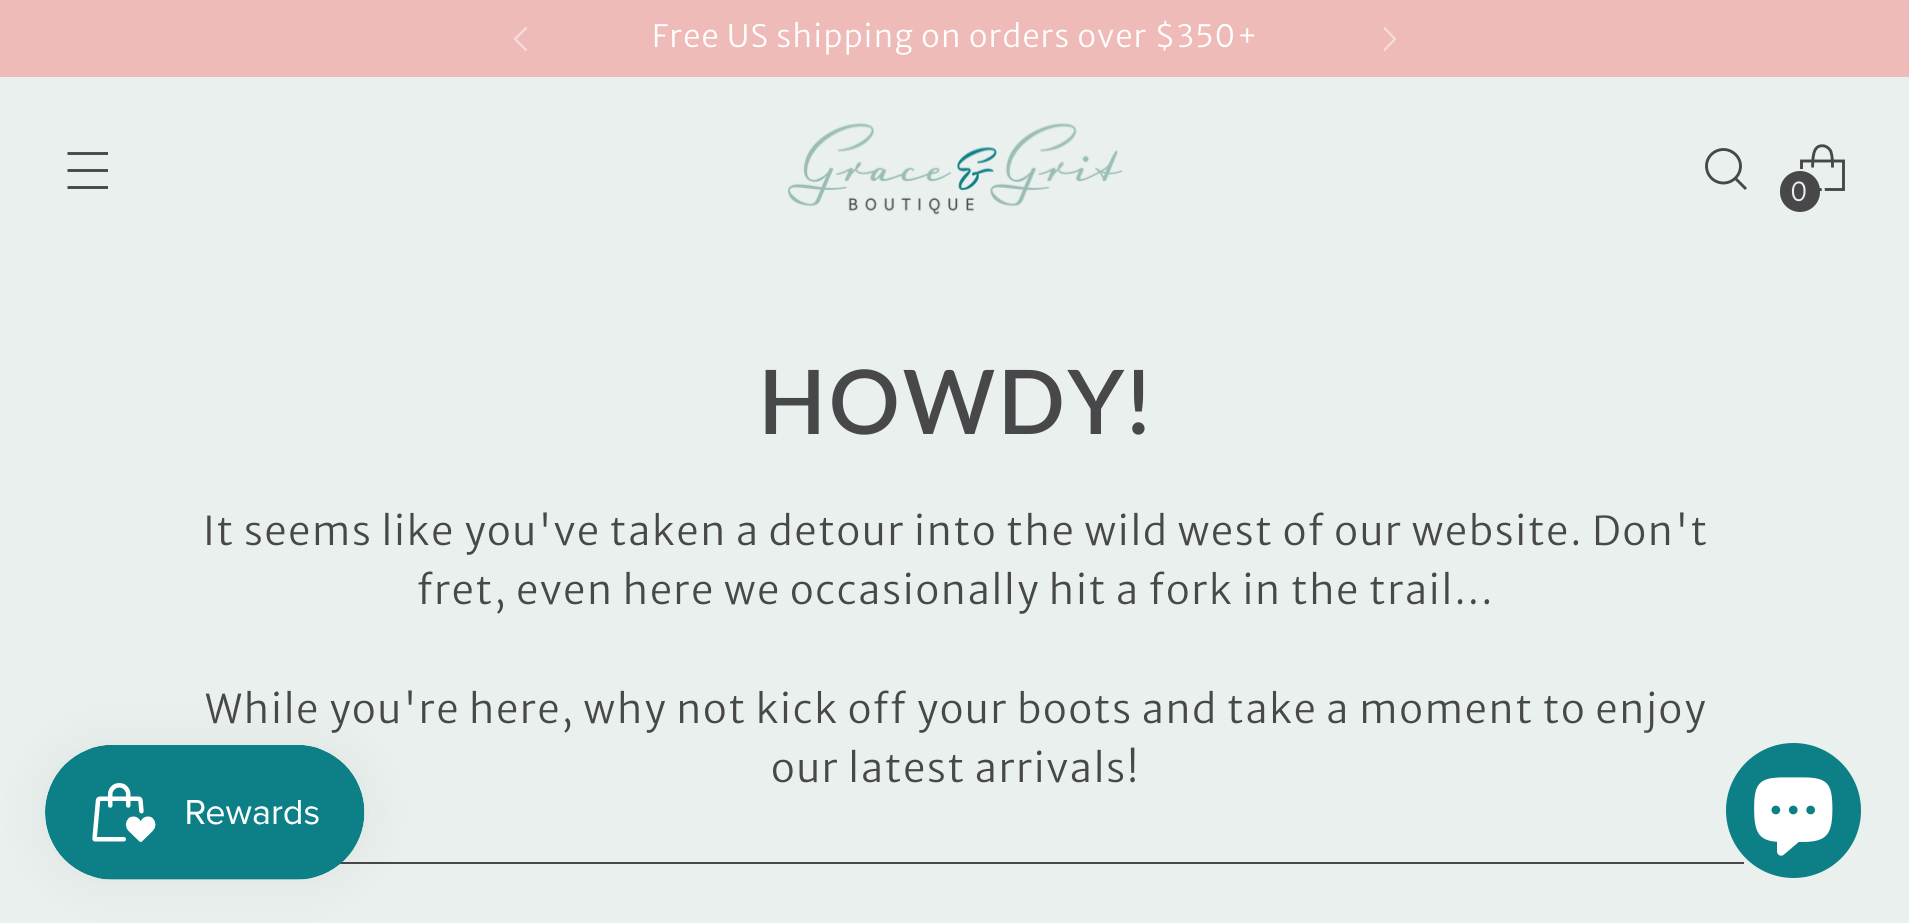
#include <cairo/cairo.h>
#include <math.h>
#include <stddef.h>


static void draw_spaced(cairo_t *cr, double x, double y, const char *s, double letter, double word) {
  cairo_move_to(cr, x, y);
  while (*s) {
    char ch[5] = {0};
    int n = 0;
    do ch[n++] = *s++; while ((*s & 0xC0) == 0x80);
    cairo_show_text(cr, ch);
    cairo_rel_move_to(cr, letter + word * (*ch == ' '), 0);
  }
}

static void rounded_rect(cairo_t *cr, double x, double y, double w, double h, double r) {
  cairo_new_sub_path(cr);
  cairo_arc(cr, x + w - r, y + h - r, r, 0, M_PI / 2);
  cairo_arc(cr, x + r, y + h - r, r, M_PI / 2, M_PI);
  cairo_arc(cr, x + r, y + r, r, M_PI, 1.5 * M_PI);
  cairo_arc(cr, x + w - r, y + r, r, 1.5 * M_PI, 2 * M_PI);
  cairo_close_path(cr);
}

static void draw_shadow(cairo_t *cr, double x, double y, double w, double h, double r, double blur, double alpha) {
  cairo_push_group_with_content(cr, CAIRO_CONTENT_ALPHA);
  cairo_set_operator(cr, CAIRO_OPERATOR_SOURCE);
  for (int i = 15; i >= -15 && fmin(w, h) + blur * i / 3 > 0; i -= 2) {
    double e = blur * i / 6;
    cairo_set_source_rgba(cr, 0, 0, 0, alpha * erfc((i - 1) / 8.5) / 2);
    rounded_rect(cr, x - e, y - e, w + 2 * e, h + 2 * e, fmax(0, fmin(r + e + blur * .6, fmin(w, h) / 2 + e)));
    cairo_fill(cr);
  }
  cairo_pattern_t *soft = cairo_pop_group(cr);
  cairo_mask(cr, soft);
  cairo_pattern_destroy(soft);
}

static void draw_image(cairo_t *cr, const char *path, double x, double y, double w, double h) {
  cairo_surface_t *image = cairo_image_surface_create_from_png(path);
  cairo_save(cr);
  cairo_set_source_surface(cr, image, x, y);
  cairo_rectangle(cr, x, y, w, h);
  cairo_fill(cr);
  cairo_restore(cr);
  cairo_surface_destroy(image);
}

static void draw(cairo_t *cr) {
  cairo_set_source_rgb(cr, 233 / 255.0, 240 / 255.0, 238 / 255.0);
  cairo_paint(cr);
  cairo_set_source_rgb(cr, 239 / 255.0, 187 / 255.0, 184 / 255.0);
  cairo_rectangle(cr, 0, 0, 1909, 77);
  cairo_fill(cr);
  cairo_new_path(cr);
  cairo_move_to(cr, 526.5, 27.5);
  cairo_line_to(cr, 515, 39);
  cairo_line_to(cr, 526.5, 50.5);
  cairo_set_source_rgb(cr, 247 / 255.0, 221 / 255.0, 220 / 255.0);
  cairo_set_line_width(cr, 2.2);
  cairo_stroke(cr);
  cairo_new_path(cr);
  cairo_move_to(cr, 1384, 50.5);
  cairo_line_to(cr, 1395, 39);
  cairo_line_to(cr, 1384, 27.5);
  cairo_stroke(cr);
  cairo_new_path(cr);
  cairo_move_to(cr, 67.5, 170.5);
  cairo_line_to(cr, 108, 170.5);
  cairo_move_to(cr, 67.5, 153.5);
  cairo_line_to(cr, 108, 153.5);
  cairo_move_to(cr, 67.5, 187.5);
  cairo_line_to(cr, 108, 187.5);
  cairo_set_source_rgb(cr, 72 / 255.0, 72 / 255.0, 74 / 255.0);
  cairo_set_line_width(cr, 2.9);
  cairo_stroke(cr);
  draw_image(cr, "images/1.png", 787, 123, 336, 92);
  cairo_new_path(cr);
  cairo_move_to(cr, 1723.5, 183);
  cairo_curve_to(cr, 1732.5, 183, 1740.5, 175.5, 1740.5, 166);
  cairo_curve_to(cr, 1740.5, 157, 1732.5, 149.5, 1723.5, 149.5);
  cairo_curve_to(cr, 1714, 149.5, 1706.5, 157, 1706.5, 166);
  cairo_curve_to(cr, 1706.5, 175.5, 1714, 183, 1723.5, 183);
  cairo_close_path(cr);
  cairo_set_line_cap(cr, CAIRO_LINE_CAP_ROUND);
  cairo_stroke(cr);
  cairo_new_path(cr);
  cairo_move_to(cr, 1735.5, 178.5);
  cairo_line_to(cr, 1746, 189);
  cairo_set_line_cap(cr, CAIRO_LINE_CAP_BUTT);
  cairo_stroke(cr);
  cairo_new_path(cr);
  cairo_move_to(cr, 1832.5, 167.5);
  cairo_curve_to(cr, 1832.5, 162.5, 1832.5, 157, 1831, 152);
  cairo_curve_to(cr, 1830, 149, 1827.5, 147, 1824.5, 146);
  cairo_curve_to(cr, 1812, 143.5, 1813, 159.5, 1812.5, 167.5);
  cairo_set_line_join(cr, CAIRO_LINE_JOIN_BEVEL);
  cairo_stroke(cr);
  cairo_new_path(cr);
  cairo_move_to(cr, 1843.5, 189.5);
  cairo_line_to(cr, 1843.5, 161);
  cairo_line_to(cr, 1801.5, 161);
  cairo_line_to(cr, 1801.5, 189.5);
  cairo_close_path(cr);
  cairo_set_line_join(cr, CAIRO_LINE_JOIN_MITER);
  cairo_stroke(cr);
  cairo_arc(cr, 1801.5, 192.5, 22, 0, 2 * M_PI);
  cairo_set_source_rgb(cr, 233 / 255.0, 240 / 255.0, 238 / 255.0);
  cairo_set_line_width(cr, 3);
  cairo_stroke(cr);
  cairo_set_source_rgb(cr, 72 / 255.0, 72 / 255.0, 74 / 255.0);
  rounded_rect(cr, 1780, 171, 40, 41, 20);
  cairo_fill(cr);
  cairo_rectangle(cr, 340, 862, 1404, 2);
  cairo_fill(cr);
  cairo_set_source_rgb(cr, 0, 0, 0);
  draw_shadow(cr, 45, 745, 320, 135, 67.5, 28, 0.05);
  draw_image(cr, "images/2.png", 45, 745, 320, 135);
  cairo_set_source_rgb(cr, 12 / 255.0, 128 / 255.0, 134 / 255.0);
  cairo_arc(cr, 1793.5, 810.5, 67.5, 0, 2 * M_PI);
  cairo_fill(cr);
  draw_image(cr, "images/3.png", 1754, 777, 79, 79);
  cairo_select_font_face(cr, "Merriweather Sans Light", CAIRO_FONT_SLANT_NORMAL, CAIRO_FONT_WEIGHT_NORMAL);
  cairo_set_font_size(cr, 30.75);
  cairo_set_source_rgb(cr, 1, 1, 1);
  draw_spaced(cr, 652, 47, "Free US shipping on orders over $350+", 1.4, 0);
  cairo_set_font_size(cr, 26);
  cairo_set_source_rgb(cr, 233 / 255.0, 240 / 255.0, 238 / 255.0);
  draw_spaced(cr, 1790, 201, "0", 1.78, 0);
  cairo_select_font_face(cr, "Lato SemiBold", CAIRO_FONT_SLANT_NORMAL, CAIRO_FONT_WEIGHT_NORMAL);
  cairo_set_font_size(cr, 89);
  cairo_set_source_rgb(cr, 72 / 255.0, 72 / 255.0, 74 / 255.0);
  draw_spaced(cr, 758, 434, "HOWDY!", 2.25, 0);
  cairo_select_font_face(cr, "Merriweather Sans Light", CAIRO_FONT_SLANT_NORMAL, CAIRO_FONT_WEIGHT_NORMAL);
  cairo_set_font_size(cr, 39.55);
  draw_spaced(cr, 203, 545, "It seems like you've taken a detour into the wild west of our website. Don't", 1.78, 0);
  draw_spaced(cr, 417, 604, "fret, even here we occasionally hit a fork in the trail...", 1.78, 0);
  draw_spaced(cr, 205, 723, "While you're here, why not kick off your boots and take a moment to enjoy", 1.78, 0);
  draw_spaced(cr, 771, 782, "our latest arrivals!", 1.78, 0);
}

int main(void) {
  cairo_surface_t *surface = cairo_image_surface_create(CAIRO_FORMAT_RGB24, 1909, 923);
  cairo_t *cr = cairo_create(surface);
  cairo_font_options_t *options = cairo_font_options_create();
  cairo_font_options_set_hint_metrics(options, CAIRO_HINT_METRICS_OFF);
  cairo_font_options_set_hint_style(options, CAIRO_HINT_STYLE_NONE);
  cairo_set_font_options(cr, options);
  cairo_set_miter_limit(cr, 4);
  draw(cr);
  cairo_surface_write_to_png(surface, "out.png");
  cairo_font_options_destroy(options);
  cairo_destroy(cr);
  cairo_surface_destroy(surface);
  return 0;
}
